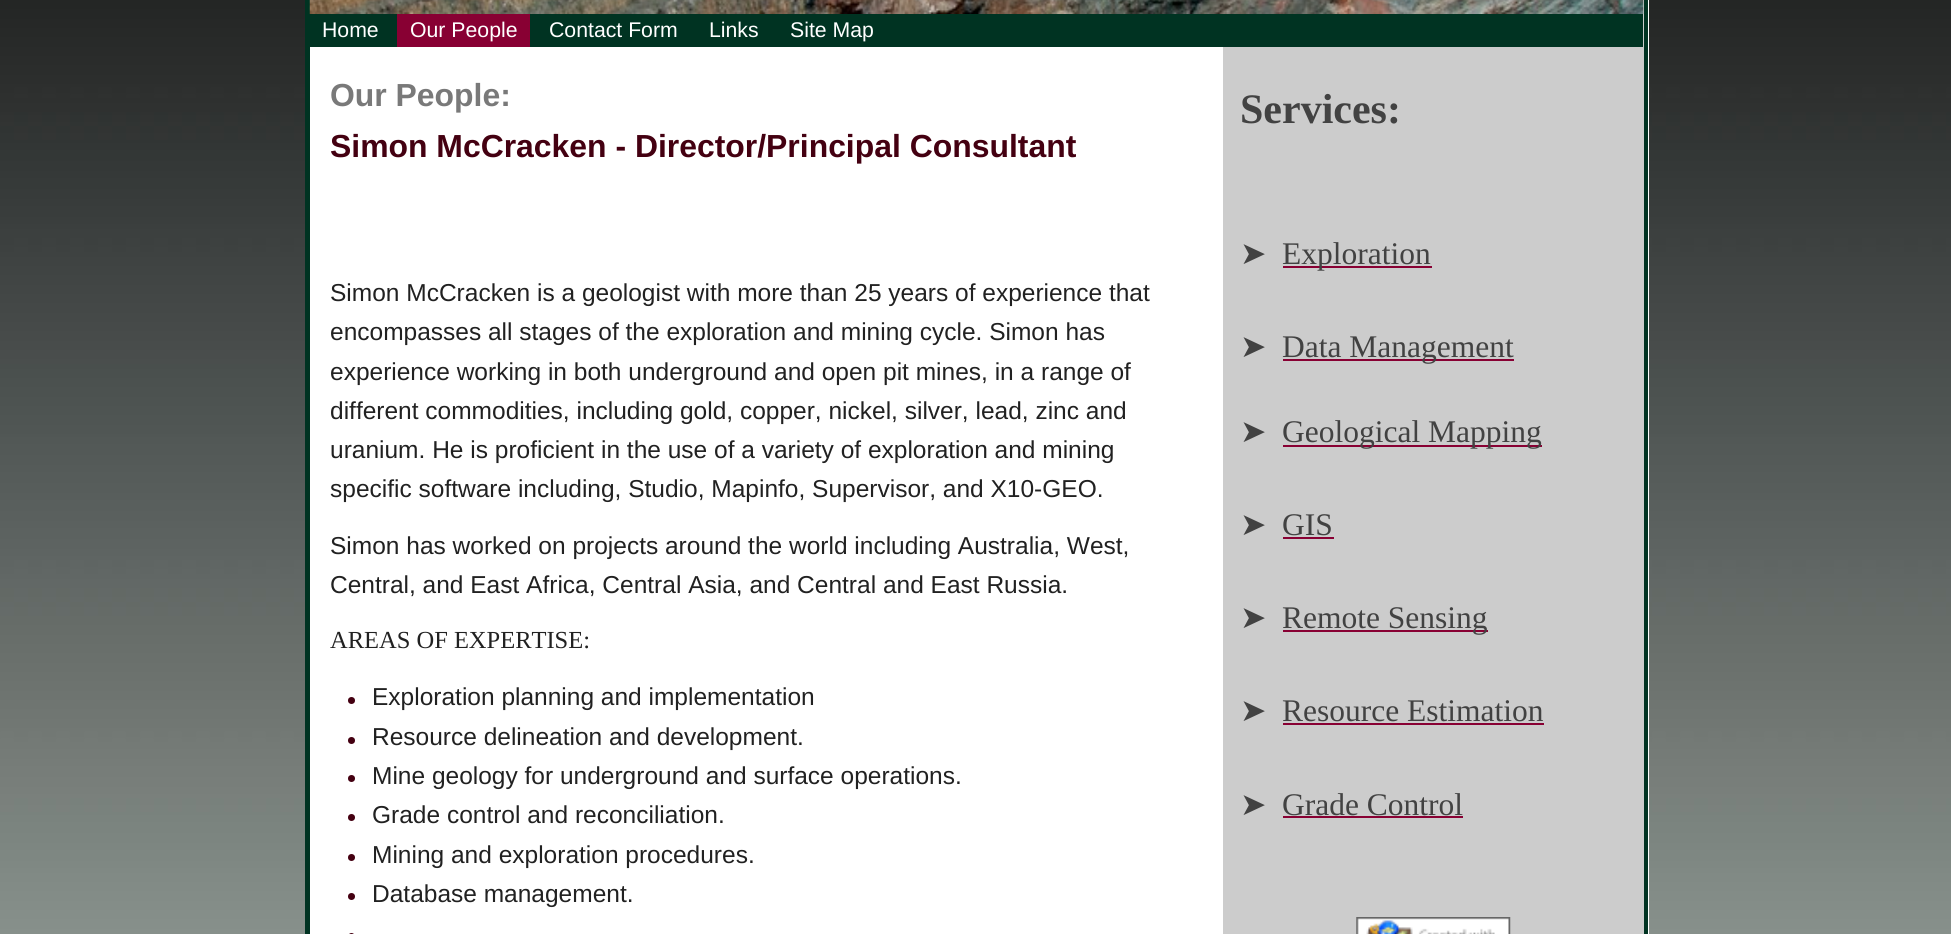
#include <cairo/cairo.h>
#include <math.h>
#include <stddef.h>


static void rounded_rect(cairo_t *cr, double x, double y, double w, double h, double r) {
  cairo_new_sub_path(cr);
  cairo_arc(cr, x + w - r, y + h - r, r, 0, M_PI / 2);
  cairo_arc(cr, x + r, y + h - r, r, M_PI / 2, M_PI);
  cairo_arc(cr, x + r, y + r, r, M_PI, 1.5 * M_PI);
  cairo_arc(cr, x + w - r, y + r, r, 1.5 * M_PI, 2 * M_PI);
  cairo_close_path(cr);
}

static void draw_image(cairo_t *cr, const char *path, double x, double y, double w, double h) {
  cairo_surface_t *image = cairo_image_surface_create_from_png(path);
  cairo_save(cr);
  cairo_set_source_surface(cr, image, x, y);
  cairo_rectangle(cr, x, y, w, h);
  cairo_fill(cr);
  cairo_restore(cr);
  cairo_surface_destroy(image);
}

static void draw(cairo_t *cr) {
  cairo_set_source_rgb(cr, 1, 1, 1);
  cairo_paint(cr);
  draw_image(cr, "images/1.png", 0, 0, 1951, 934);
  cairo_set_source_rgb(cr, 1, 1, 1);
  cairo_rectangle(cr, 310, 0, 1339, 934);
  cairo_fill(cr);
  cairo_set_source_rgb(cr, 0, 51 / 255.0, 34 / 255.0);
  cairo_rectangle(cr, 1644, 0, 4, 934);
  cairo_fill(cr);
  cairo_rectangle(cr, 305, 0, 5, 934);
  cairo_fill(cr);
  cairo_set_source_rgb(cr, 204 / 255.0, 204 / 255.0, 204 / 255.0);
  cairo_rectangle(cr, 1223, 0, 421, 934);
  cairo_fill(cr);
  draw_image(cr, "images/2.png", 309, 0, 1335, 14);
  cairo_set_source_rgb(cr, 0, 51 / 255.0, 34 / 255.0);
  cairo_rectangle(cr, 310, 14, 1333, 33);
  cairo_fill(cr);
  cairo_set_source_rgb(cr, 136 / 255.0, 0, 51 / 255.0);
  cairo_rectangle(cr, 397, 14, 133, 33);
  cairo_fill(cr);
  cairo_set_source_rgb(cr, 68 / 255.0, 0, 17 / 255.0);
  cairo_arc(cr, 351.5, 700.5, 3.5, 0, 2 * M_PI);
  cairo_fill(cr);
  cairo_arc(cr, 351.5, 740.5, 3.5, 0, 2 * M_PI);
  cairo_fill(cr);
  cairo_arc(cr, 351.5, 778.5, 3.5, 0, 2 * M_PI);
  cairo_fill(cr);
  cairo_arc(cr, 351.5, 817.5, 3.5, 0, 2 * M_PI);
  cairo_fill(cr);
  cairo_arc(cr, 351.5, 857.5, 3.5, 0, 2 * M_PI);
  cairo_fill(cr);
  cairo_arc(cr, 351.5, 896.5, 3.5, 0, 2 * M_PI);
  cairo_fill(cr);
  rounded_rect(cr, 348, 933, 7, 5, 3.5);
  cairo_fill(cr);
  cairo_set_source_rgb(cr, 136 / 255.0, 0, 51 / 255.0);
  cairo_rectangle(cr, 1283, 266, 149, 2);
  cairo_fill(cr);
  cairo_rectangle(cr, 1283, 359, 231, 2);
  cairo_fill(cr);
  cairo_rectangle(cr, 1283, 445, 259, 2);
  cairo_fill(cr);
  cairo_rectangle(cr, 1283, 537, 51, 2);
  cairo_fill(cr);
  cairo_rectangle(cr, 1283, 630, 205, 2);
  cairo_fill(cr);
  cairo_rectangle(cr, 1283, 723, 261, 2);
  cairo_fill(cr);
  cairo_rectangle(cr, 1283, 816, 180, 2);
  cairo_fill(cr);
  draw_image(cr, "images/3.png", 1356, 917, 155, 17);
  cairo_select_font_face(cr, "Liberation Sans", CAIRO_FONT_SLANT_NORMAL, CAIRO_FONT_WEIGHT_NORMAL);
  cairo_set_font_size(cr, 21.25);
  cairo_set_source_rgb(cr, 1, 1, 1);
  cairo_move_to(cr, 322, 37);
  cairo_show_text(cr, "Home");
  cairo_move_to(cr, 410, 37);
  cairo_show_text(cr, "Our People");
  cairo_move_to(cr, 549, 37);
  cairo_show_text(cr, "Contact Form");
  cairo_move_to(cr, 709, 37);
  cairo_show_text(cr, "Links");
  cairo_move_to(cr, 790, 37);
  cairo_show_text(cr, "Site Map");
  cairo_select_font_face(cr, "Liberation Sans", CAIRO_FONT_SLANT_NORMAL, CAIRO_FONT_WEIGHT_BOLD);
  cairo_set_font_size(cr, 31.9);
  cairo_set_source_rgb(cr, 121 / 255.0, 121 / 255.0, 121 / 255.0);
  cairo_move_to(cr, 330, 106);
  cairo_show_text(cr, "Our People:");
  cairo_set_source_rgb(cr, 68 / 255.0, 0, 17 / 255.0);
  cairo_move_to(cr, 330, 157);
  cairo_show_text(cr, "Simon McCracken - Director/Principal Consultant");
  cairo_select_font_face(cr, "Liberation Sans", CAIRO_FONT_SLANT_NORMAL, CAIRO_FONT_WEIGHT_NORMAL);
  cairo_set_font_size(cr, 24.5);
  cairo_set_source_rgb(cr, 33 / 255.0, 33 / 255.0, 33 / 255.0);
  cairo_move_to(cr, 330, 301);
  cairo_show_text(cr, "Simon McCracken is a geologist with more than 25 years of experience that");
  cairo_move_to(cr, 330, 340);
  cairo_show_text(cr, "encompasses all stages of the exploration and mining cycle. Simon has");
  cairo_move_to(cr, 330, 380);
  cairo_show_text(cr, "experience working in both underground and open pit mines, in a range of");
  cairo_move_to(cr, 330, 419);
  cairo_show_text(cr, "different commodities, including gold, copper, nickel, silver, lead, zinc and");
  cairo_move_to(cr, 330, 458);
  cairo_show_text(cr, "uranium. He is proficient in the use of a variety of exploration and mining");
  cairo_move_to(cr, 330, 497);
  cairo_show_text(cr, "specific software including, Studio, Mapinfo, Supervisor, and X10-GEO.");
  cairo_move_to(cr, 330, 554);
  cairo_show_text(cr, "Simon has worked on projects around the world including Australia, West,");
  cairo_move_to(cr, 330, 593);
  cairo_show_text(cr, "Central, and East Africa, Central Asia, and Central and East Russia.");
  cairo_select_font_face(cr, "Liberation Serif", CAIRO_FONT_SLANT_NORMAL, CAIRO_FONT_WEIGHT_NORMAL);
  cairo_move_to(cr, 330, 648);
  cairo_show_text(cr, "AREAS OF EXPERTISE:");
  cairo_select_font_face(cr, "Liberation Sans", CAIRO_FONT_SLANT_NORMAL, CAIRO_FONT_WEIGHT_NORMAL);
  cairo_move_to(cr, 372, 705);
  cairo_show_text(cr, "Exploration planning and implementation");
  cairo_move_to(cr, 372, 745);
  cairo_show_text(cr, "Resource delineation and development.");
  cairo_move_to(cr, 372, 784);
  cairo_show_text(cr, "Mine geology for underground and surface operations.");
  cairo_move_to(cr, 372, 823);
  cairo_show_text(cr, "Grade control and reconciliation.");
  cairo_move_to(cr, 372, 863);
  cairo_show_text(cr, "Mining and exploration procedures.");
  cairo_move_to(cr, 372, 902);
  cairo_show_text(cr, "Database management.");
  cairo_select_font_face(cr, "Liberation Serif", CAIRO_FONT_SLANT_NORMAL, CAIRO_FONT_WEIGHT_BOLD);
  cairo_set_font_size(cr, 42);
  cairo_set_source_rgb(cr, 66 / 255.0, 66 / 255.0, 66 / 255.0);
  cairo_move_to(cr, 1240, 123);
  cairo_show_text(cr, "Services:");
  cairo_select_font_face(cr, "DejaVu Sans", CAIRO_FONT_SLANT_NORMAL, CAIRO_FONT_WEIGHT_NORMAL);
  cairo_set_font_size(cr, 31.5);
  cairo_move_to(cr, 1240, 264);
  cairo_show_text(cr, "➤");
  cairo_select_font_face(cr, "Liberation Serif", CAIRO_FONT_SLANT_NORMAL, CAIRO_FONT_WEIGHT_NORMAL);
  cairo_move_to(cr, 1282, 264);
  cairo_show_text(cr, "Exploration");
  cairo_select_font_face(cr, "DejaVu Sans", CAIRO_FONT_SLANT_NORMAL, CAIRO_FONT_WEIGHT_NORMAL);
  cairo_move_to(cr, 1240, 357);
  cairo_show_text(cr, "➤");
  cairo_select_font_face(cr, "Liberation Serif", CAIRO_FONT_SLANT_NORMAL, CAIRO_FONT_WEIGHT_NORMAL);
  cairo_move_to(cr, 1282, 357);
  cairo_show_text(cr, "Data Management");
  cairo_select_font_face(cr, "DejaVu Sans", CAIRO_FONT_SLANT_NORMAL, CAIRO_FONT_WEIGHT_NORMAL);
  cairo_move_to(cr, 1240, 442);
  cairo_show_text(cr, "➤");
  cairo_select_font_face(cr, "Liberation Serif", CAIRO_FONT_SLANT_NORMAL, CAIRO_FONT_WEIGHT_NORMAL);
  cairo_move_to(cr, 1282, 442);
  cairo_show_text(cr, "Geological Mapping");
  cairo_select_font_face(cr, "DejaVu Sans", CAIRO_FONT_SLANT_NORMAL, CAIRO_FONT_WEIGHT_NORMAL);
  cairo_move_to(cr, 1240, 535);
  cairo_show_text(cr, "➤");
  cairo_select_font_face(cr, "Liberation Serif", CAIRO_FONT_SLANT_NORMAL, CAIRO_FONT_WEIGHT_NORMAL);
  cairo_move_to(cr, 1282, 535);
  cairo_show_text(cr, "GIS");
  cairo_select_font_face(cr, "DejaVu Sans", CAIRO_FONT_SLANT_NORMAL, CAIRO_FONT_WEIGHT_NORMAL);
  cairo_move_to(cr, 1240, 628);
  cairo_show_text(cr, "➤");
  cairo_select_font_face(cr, "Liberation Serif", CAIRO_FONT_SLANT_NORMAL, CAIRO_FONT_WEIGHT_NORMAL);
  cairo_move_to(cr, 1282, 628);
  cairo_show_text(cr, "Remote Sensing");
  cairo_select_font_face(cr, "DejaVu Sans", CAIRO_FONT_SLANT_NORMAL, CAIRO_FONT_WEIGHT_NORMAL);
  cairo_move_to(cr, 1240, 721);
  cairo_show_text(cr, "➤");
  cairo_select_font_face(cr, "Liberation Serif", CAIRO_FONT_SLANT_NORMAL, CAIRO_FONT_WEIGHT_NORMAL);
  cairo_move_to(cr, 1282, 721);
  cairo_show_text(cr, "Resource Estimation");
  cairo_select_font_face(cr, "DejaVu Sans", CAIRO_FONT_SLANT_NORMAL, CAIRO_FONT_WEIGHT_NORMAL);
  cairo_move_to(cr, 1240, 815);
  cairo_show_text(cr, "➤");
  cairo_select_font_face(cr, "Liberation Serif", CAIRO_FONT_SLANT_NORMAL, CAIRO_FONT_WEIGHT_NORMAL);
  cairo_move_to(cr, 1282, 815);
  cairo_show_text(cr, "Grade Control");
}

int main(void) {
  cairo_surface_t *surface = cairo_image_surface_create(CAIRO_FORMAT_RGB24, 1951, 934);
  cairo_t *cr = cairo_create(surface);
  cairo_font_options_t *options = cairo_font_options_create();
  cairo_font_options_set_hint_metrics(options, CAIRO_HINT_METRICS_OFF);
  cairo_font_options_set_hint_style(options, CAIRO_HINT_STYLE_NONE);
  cairo_set_font_options(cr, options);
  cairo_set_miter_limit(cr, 4);
  draw(cr);
  cairo_surface_write_to_png(surface, "out.png");
  cairo_font_options_destroy(options);
  cairo_destroy(cr);
  cairo_surface_destroy(surface);
  return 0;
}
